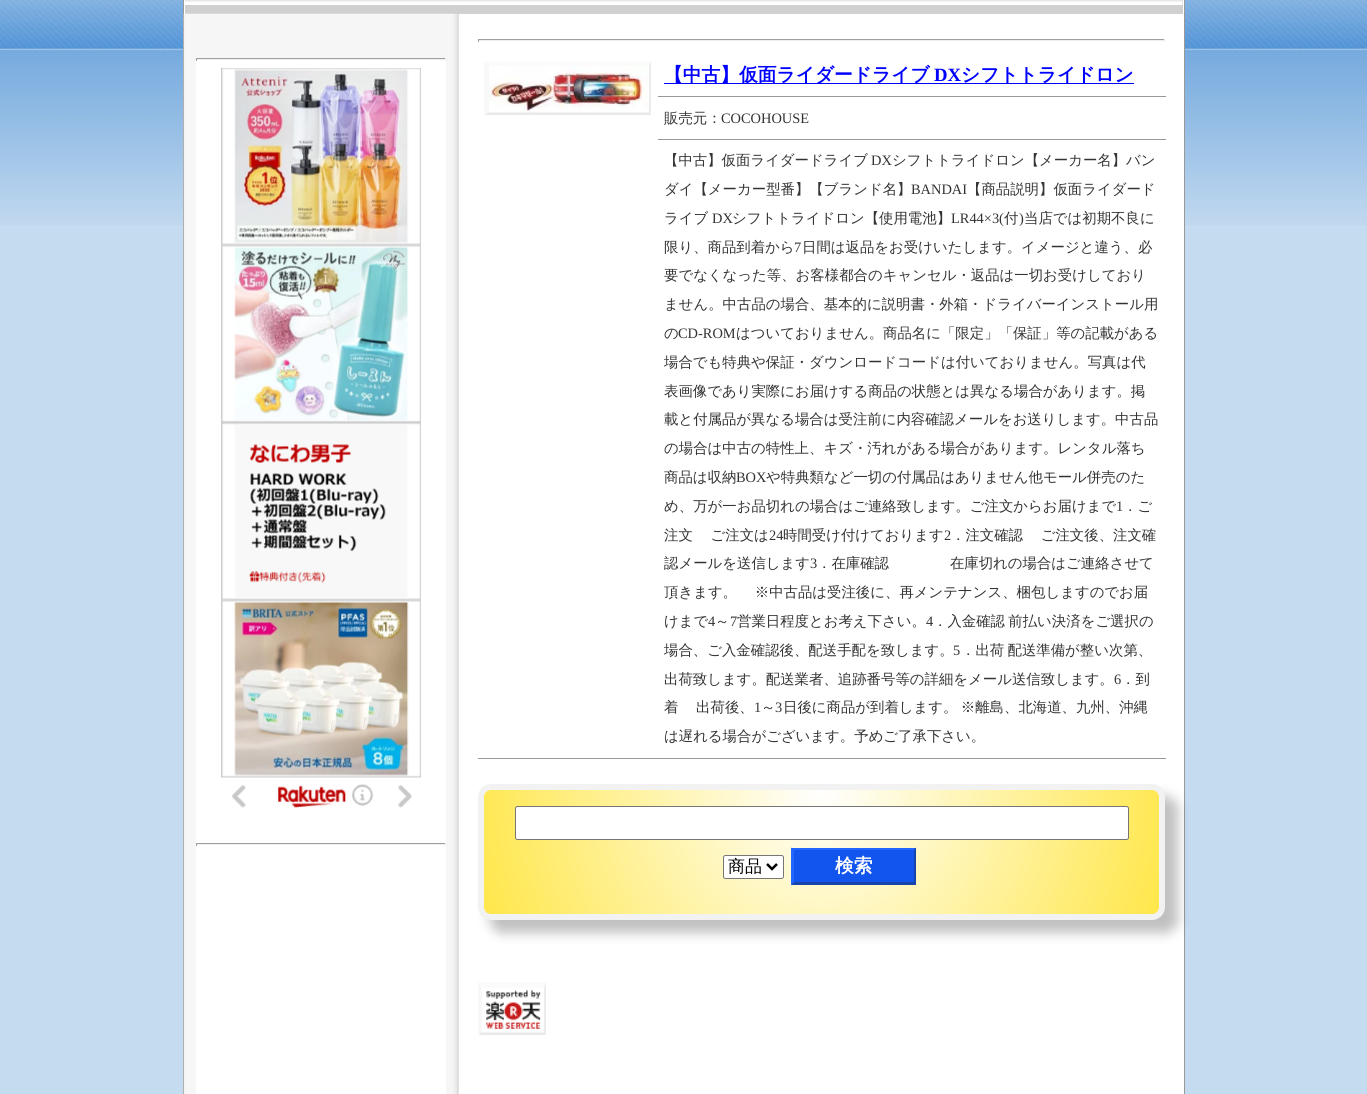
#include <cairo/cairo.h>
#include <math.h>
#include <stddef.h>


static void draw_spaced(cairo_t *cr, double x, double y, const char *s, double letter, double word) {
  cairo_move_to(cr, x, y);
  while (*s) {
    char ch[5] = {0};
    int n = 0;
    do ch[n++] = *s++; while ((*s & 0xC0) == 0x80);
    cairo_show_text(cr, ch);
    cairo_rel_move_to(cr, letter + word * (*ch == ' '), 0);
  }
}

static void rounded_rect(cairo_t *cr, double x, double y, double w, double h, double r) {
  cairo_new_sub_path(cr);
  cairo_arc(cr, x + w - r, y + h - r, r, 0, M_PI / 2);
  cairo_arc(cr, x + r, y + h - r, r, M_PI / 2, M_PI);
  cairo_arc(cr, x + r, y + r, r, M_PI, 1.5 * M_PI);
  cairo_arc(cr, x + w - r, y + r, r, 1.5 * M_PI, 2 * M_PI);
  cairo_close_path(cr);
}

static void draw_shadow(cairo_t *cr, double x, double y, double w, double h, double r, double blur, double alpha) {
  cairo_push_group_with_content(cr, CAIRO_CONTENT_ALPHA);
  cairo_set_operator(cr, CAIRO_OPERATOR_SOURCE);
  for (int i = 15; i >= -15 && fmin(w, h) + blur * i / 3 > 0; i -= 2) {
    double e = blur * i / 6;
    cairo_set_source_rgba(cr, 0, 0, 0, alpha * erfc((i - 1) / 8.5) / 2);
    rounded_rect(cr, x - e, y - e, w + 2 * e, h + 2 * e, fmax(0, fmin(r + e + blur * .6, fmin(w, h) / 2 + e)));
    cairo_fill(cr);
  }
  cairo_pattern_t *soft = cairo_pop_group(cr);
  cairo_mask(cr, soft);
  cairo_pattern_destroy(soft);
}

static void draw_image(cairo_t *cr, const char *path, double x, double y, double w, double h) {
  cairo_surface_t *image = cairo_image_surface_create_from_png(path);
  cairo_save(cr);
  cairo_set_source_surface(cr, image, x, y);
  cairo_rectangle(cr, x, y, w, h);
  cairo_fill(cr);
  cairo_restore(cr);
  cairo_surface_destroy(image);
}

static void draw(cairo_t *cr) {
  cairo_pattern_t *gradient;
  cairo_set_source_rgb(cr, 197 / 255.0, 219 / 255.0, 240 / 255.0);
  cairo_paint(cr);
  draw_image(cr, "images/1.png", 0, 0, 1367, 225);
  cairo_set_source_rgb(cr, 1, 1, 1);
  cairo_rectangle(cr, 184, 0, 1000, 1094);
  cairo_fill(cr);
  cairo_set_source_rgb(cr, 153 / 255.0, 153 / 255.0, 153 / 255.0);
  cairo_rectangle(cr, 1184, 0, 1, 1094);
  cairo_fill(cr);
  cairo_rectangle(cr, 183, 0, 1, 1094);
  cairo_fill(cr);
  cairo_set_source_rgb(cr, 208 / 255.0, 208 / 255.0, 208 / 255.0);
  cairo_rectangle(cr, 185, 0, 998, 14);
  cairo_fill(cr);
  draw_image(cr, "images/2.png", 185, 0, 998, 5);
  draw_image(cr, "images/3.png", 183, 13, 276, 1081);
  cairo_set_source_rgb(cr, 1, 1, 1);
  cairo_rectangle(cr, 196, 60, 250, 1034);
  cairo_fill(cr);
  cairo_set_source_rgb(cr, 159 / 255.0, 159 / 255.0, 159 / 255.0);
  cairo_rectangle(cr, 196, 58, 250, 1);
  cairo_fill(cr);
  cairo_set_source_rgb(cr, 238 / 255.0, 238 / 255.0, 238 / 255.0);
  cairo_rectangle(cr, 445, 58, 1, 3);
  cairo_fill(cr);
  cairo_rectangle(cr, 196, 59, 250, 1);
  cairo_fill(cr);
  cairo_set_source_rgb(cr, 159 / 255.0, 159 / 255.0, 159 / 255.0);
  cairo_rectangle(cr, 196, 58, 1, 3);
  cairo_fill(cr);
  draw_image(cr, "images/4.png", 221, 68, 200, 740);
  cairo_rectangle(cr, 196, 843, 250, 1);
  cairo_fill(cr);
  cairo_set_source_rgb(cr, 238 / 255.0, 238 / 255.0, 238 / 255.0);
  cairo_rectangle(cr, 445, 843, 1, 3);
  cairo_fill(cr);
  cairo_rectangle(cr, 196, 844, 250, 1);
  cairo_fill(cr);
  cairo_set_source_rgb(cr, 159 / 255.0, 159 / 255.0, 159 / 255.0);
  cairo_rectangle(cr, 196, 843, 1, 3);
  cairo_fill(cr);
  cairo_rectangle(cr, 478, 39, 687, 1);
  cairo_fill(cr);
  cairo_set_source_rgb(cr, 238 / 255.0, 238 / 255.0, 238 / 255.0);
  cairo_rectangle(cr, 1164, 39, 1, 3);
  cairo_fill(cr);
  cairo_rectangle(cr, 478, 40, 687, 1);
  cairo_fill(cr);
  cairo_set_source_rgb(cr, 159 / 255.0, 159 / 255.0, 159 / 255.0);
  cairo_rectangle(cr, 478, 39, 1, 3);
  cairo_fill(cr);
  cairo_set_source_rgb(cr, 251 / 255.0, 251 / 255.0, 251 / 255.0);
  cairo_new_path(cr);
  cairo_move_to(cr, 484, 61);
  cairo_line_to(cr, 651, 61);
  cairo_line_to(cr, 649, 66);
  cairo_line_to(cr, 489, 66);
  cairo_close_path(cr);
  cairo_fill(cr);
  cairo_set_source_rgb(cr, 236 / 255.0, 236 / 255.0, 236 / 255.0);
  cairo_new_path(cr);
  cairo_move_to(cr, 651, 61);
  cairo_line_to(cr, 651, 115);
  cairo_line_to(cr, 649, 112);
  cairo_line_to(cr, 649, 66);
  cairo_close_path(cr);
  cairo_fill(cr);
  cairo_set_source_rgb(cr, 233 / 255.0, 233 / 255.0, 233 / 255.0);
  cairo_new_path(cr);
  cairo_move_to(cr, 651, 115);
  cairo_line_to(cr, 484, 115);
  cairo_line_to(cr, 489, 112);
  cairo_line_to(cr, 649, 112);
  cairo_close_path(cr);
  cairo_fill(cr);
  cairo_set_source_rgb(cr, 248 / 255.0, 248 / 255.0, 248 / 255.0);
  cairo_new_path(cr);
  cairo_move_to(cr, 484, 115);
  cairo_line_to(cr, 484, 61);
  cairo_line_to(cr, 489, 66);
  cairo_line_to(cr, 489, 112);
  cairo_close_path(cr);
  cairo_fill(cr);
  draw_image(cr, "images/5.png", 489, 66, 160, 47);
  cairo_set_source_rgb(cr, 153 / 255.0, 153 / 255.0, 153 / 255.0);
  cairo_rectangle(cr, 658, 96, 508, 1);
  cairo_fill(cr);
  cairo_set_source_rgb(cr, 0, 0, 1);
  cairo_rectangle(cr, 664, 83, 470, 1);
  cairo_fill(cr);
  cairo_set_source_rgb(cr, 153 / 255.0, 153 / 255.0, 153 / 255.0);
  cairo_rectangle(cr, 658, 139, 508, 1);
  cairo_fill(cr);
  cairo_rectangle(cr, 478, 758, 688, 1);
  cairo_fill(cr);
  cairo_set_source_rgb(cr, 0, 0, 0);
  draw_shadow(cr, 490, 796, 688, 137, 13, 6, 0.25);
  gradient = cairo_pattern_create_radial(821, 790, 0, 821, 790, 506);
  cairo_pattern_add_color_stop_rgba(gradient, 0, 1, 1, 1, 1);
  cairo_pattern_add_color_stop_rgba(gradient, 1, 1, 221 / 255.0, 0, 1);
  cairo_set_source(cr, gradient);
  cairo_pattern_destroy(gradient);
  cairo_rectangle(cr, 484, 790, 675, 124);
  cairo_fill(cr);
  rounded_rect(cr, 481, 787, 681, 130, 10);
  cairo_set_source_rgb(cr, 242 / 255.0, 242 / 255.0, 242 / 255.0);
  cairo_set_line_width(cr, 6);
  cairo_stroke(cr);
  cairo_set_source_rgb(cr, 1, 1, 1);
  rounded_rect(cr, 515.5, 806.5, 613, 33, 2);
  cairo_fill_preserve(cr);
  cairo_set_source_rgb(cr, 118 / 255.0, 118 / 255.0, 118 / 255.0);
  cairo_set_line_width(cr, 1);
  cairo_stroke(cr);
  cairo_set_source_rgb(cr, 1, 1, 1);
  rounded_rect(cr, 723.5, 855.5, 60, 23, 2);
  cairo_fill_preserve(cr);
  cairo_set_source_rgb(cr, 118 / 255.0, 118 / 255.0, 118 / 255.0);
  cairo_stroke(cr);
  cairo_new_path(cr);
  cairo_move_to(cr, 767, 864);
  cairo_line_to(cr, 772, 869);
  cairo_line_to(cr, 777, 864);
  cairo_set_source_rgb(cr, 0, 0, 0);
  cairo_set_line_width(cr, 2.5);
  cairo_stroke(cr);
  cairo_set_source_rgb(cr, 17 / 255.0, 85 / 255.0, 238 / 255.0);
  cairo_rectangle(cr, 791, 848, 125, 37);
  cairo_fill(cr);
  cairo_set_source_rgb(cr, 34 / 255.0, 102 / 255.0, 1);
  cairo_new_path(cr);
  cairo_move_to(cr, 791, 848);
  cairo_line_to(cr, 916, 848);
  cairo_line_to(cr, 914, 850);
  cairo_line_to(cr, 794, 850);
  cairo_close_path(cr);
  cairo_fill(cr);
  cairo_set_source_rgb(cr, 23 / 255.0, 68 / 255.0, 170 / 255.0);
  cairo_new_path(cr);
  cairo_move_to(cr, 916, 847.5);
  cairo_line_to(cr, 916, 885);
  cairo_line_to(cr, 914, 882.5);
  cairo_line_to(cr, 914, 850);
  cairo_close_path(cr);
  cairo_fill(cr);
  cairo_new_path(cr);
  cairo_move_to(cr, 916, 885);
  cairo_line_to(cr, 791, 885);
  cairo_line_to(cr, 794, 882);
  cairo_line_to(cr, 914, 882);
  cairo_close_path(cr);
  cairo_fill(cr);
  cairo_set_source_rgb(cr, 34 / 255.0, 102 / 255.0, 1);
  cairo_new_path(cr);
  cairo_move_to(cr, 791, 885);
  cairo_line_to(cr, 791, 847.5);
  cairo_line_to(cr, 794, 850);
  cairo_line_to(cr, 794, 882.5);
  cairo_close_path(cr);
  cairo_fill(cr);
  cairo_set_source_rgb(cr, 251 / 255.0, 251 / 255.0, 251 / 255.0);
  cairo_new_path(cr);
  cairo_move_to(cr, 478, 982);
  cairo_line_to(cr, 546, 982);
  cairo_line_to(cr, 544, 988);
  cairo_line_to(cr, 482, 988);
  cairo_close_path(cr);
  cairo_fill(cr);
  cairo_set_source_rgb(cr, 236 / 255.0, 236 / 255.0, 236 / 255.0);
  cairo_new_path(cr);
  cairo_move_to(cr, 546, 982);
  cairo_line_to(cr, 546, 1035);
  cairo_line_to(cr, 544, 1032);
  cairo_line_to(cr, 544, 988);
  cairo_close_path(cr);
  cairo_fill(cr);
  cairo_set_source_rgb(cr, 233 / 255.0, 233 / 255.0, 233 / 255.0);
  cairo_new_path(cr);
  cairo_move_to(cr, 546, 1035);
  cairo_line_to(cr, 478, 1035);
  cairo_line_to(cr, 482, 1032);
  cairo_line_to(cr, 544, 1032);
  cairo_close_path(cr);
  cairo_fill(cr);
  cairo_set_source_rgb(cr, 248 / 255.0, 248 / 255.0, 248 / 255.0);
  cairo_new_path(cr);
  cairo_move_to(cr, 478, 1035);
  cairo_line_to(cr, 478, 982);
  cairo_line_to(cr, 482, 988);
  cairo_line_to(cr, 482, 1032);
  cairo_close_path(cr);
  cairo_fill(cr);
  draw_image(cr, "images/6.png", 482, 989, 62, 44);
  cairo_select_font_face(cr, "WenQuanYi Zen Hei", CAIRO_FONT_SLANT_NORMAL, CAIRO_FONT_WEIGHT_BOLD);
  cairo_set_font_size(cr, 18.75);
  cairo_set_source_rgb(cr, 0, 0, 1);
  cairo_move_to(cr, 664, 81);
  cairo_show_text(cr, "【中古】仮面ライダードライブ");
  cairo_select_font_face(cr, "Liberation Serif", CAIRO_FONT_SLANT_NORMAL, CAIRO_FONT_WEIGHT_BOLD);
  cairo_move_to(cr, 934, 81);
  cairo_show_text(cr, "DX");
  cairo_select_font_face(cr, "WenQuanYi Zen Hei", CAIRO_FONT_SLANT_NORMAL, CAIRO_FONT_WEIGHT_BOLD);
  cairo_move_to(cr, 961, 81);
  cairo_show_text(cr, "シフトトライドロン");
  cairo_select_font_face(cr, "WenQuanYi Zen Hei Medium", CAIRO_FONT_SLANT_NORMAL, CAIRO_FONT_WEIGHT_NORMAL);
  cairo_set_font_size(cr, 14.4);
  cairo_set_source_rgb(cr, 51 / 255.0, 51 / 255.0, 51 / 255.0);
  cairo_move_to(cr, 664, 123);
  cairo_show_text(cr, "販売元：");
  cairo_select_font_face(cr, "Liberation Serif", CAIRO_FONT_SLANT_NORMAL, CAIRO_FONT_WEIGHT_NORMAL);
  cairo_move_to(cr, 721, 123);
  cairo_show_text(cr, "COCOHOUSE");
  cairo_select_font_face(cr, "WenQuanYi Zen Hei Medium", CAIRO_FONT_SLANT_NORMAL, CAIRO_FONT_WEIGHT_NORMAL);
  cairo_move_to(cr, 664, 165);
  cairo_show_text(cr, "【中古】仮面ライダードライブ");
  cairo_select_font_face(cr, "Liberation Serif", CAIRO_FONT_SLANT_NORMAL, CAIRO_FONT_WEIGHT_NORMAL);
  cairo_move_to(cr, 871, 165);
  cairo_show_text(cr, "DX");
  cairo_select_font_face(cr, "WenQuanYi Zen Hei Medium", CAIRO_FONT_SLANT_NORMAL, CAIRO_FONT_WEIGHT_NORMAL);
  cairo_move_to(cr, 892, 165);
  cairo_show_text(cr, "シフトトライドロン【メーカー名】バン");
  cairo_move_to(cr, 664, 194);
  cairo_show_text(cr, "ダイ【メーカー型番】【ブランド名】");
  cairo_select_font_face(cr, "Liberation Serif", CAIRO_FONT_SLANT_NORMAL, CAIRO_FONT_WEIGHT_NORMAL);
  cairo_move_to(cr, 911, 194);
  cairo_show_text(cr, "BANDAI");
  cairo_select_font_face(cr, "WenQuanYi Zen Hei Medium", CAIRO_FONT_SLANT_NORMAL, CAIRO_FONT_WEIGHT_NORMAL);
  cairo_move_to(cr, 967, 194);
  cairo_show_text(cr, "【商品説明】仮面ライダード");
  cairo_move_to(cr, 664, 223);
  cairo_show_text(cr, "ライブ");
  cairo_select_font_face(cr, "Liberation Serif", CAIRO_FONT_SLANT_NORMAL, CAIRO_FONT_WEIGHT_NORMAL);
  cairo_move_to(cr, 712, 223);
  cairo_show_text(cr, "DX");
  cairo_select_font_face(cr, "WenQuanYi Zen Hei Medium", CAIRO_FONT_SLANT_NORMAL, CAIRO_FONT_WEIGHT_NORMAL);
  cairo_move_to(cr, 732, 223);
  cairo_show_text(cr, "シフトトライドロン【使用電池】");
  cairo_select_font_face(cr, "Liberation Serif", CAIRO_FONT_SLANT_NORMAL, CAIRO_FONT_WEIGHT_NORMAL);
  cairo_move_to(cr, 951, 223);
  cairo_show_text(cr, "LR44×3(");
  cairo_select_font_face(cr, "WenQuanYi Zen Hei Medium", CAIRO_FONT_SLANT_NORMAL, CAIRO_FONT_WEIGHT_NORMAL);
  cairo_move_to(cr, 1004, 223);
  cairo_show_text(cr, "付");
  cairo_select_font_face(cr, "Liberation Serif", CAIRO_FONT_SLANT_NORMAL, CAIRO_FONT_WEIGHT_NORMAL);
  cairo_move_to(cr, 1019, 223);
  cairo_show_text(cr, ")");
  cairo_select_font_face(cr, "WenQuanYi Zen Hei Medium", CAIRO_FONT_SLANT_NORMAL, CAIRO_FONT_WEIGHT_NORMAL);
  cairo_move_to(cr, 1024, 223);
  cairo_show_text(cr, "当店では初期不良に");
  cairo_move_to(cr, 664, 252);
  cairo_show_text(cr, "限り、商品到着から");
  cairo_select_font_face(cr, "Liberation Serif", CAIRO_FONT_SLANT_NORMAL, CAIRO_FONT_WEIGHT_NORMAL);
  cairo_move_to(cr, 794, 252);
  cairo_show_text(cr, "7");
  cairo_select_font_face(cr, "WenQuanYi Zen Hei Medium", CAIRO_FONT_SLANT_NORMAL, CAIRO_FONT_WEIGHT_NORMAL);
  cairo_move_to(cr, 802, 252);
  cairo_show_text(cr, "日間は返品をお受けいたします。イメージと違う、必");
  cairo_move_to(cr, 664, 280);
  cairo_show_text(cr, "要でなくなった等、お客様都合のキャンセル・返品は一切お受けしており");
  cairo_move_to(cr, 664, 309);
  cairo_show_text(cr, "ません。中古品の場合、基本的に説明書・外箱・ドライバーインストール用");
  cairo_move_to(cr, 664, 338);
  cairo_show_text(cr, "の");
  cairo_select_font_face(cr, "Liberation Serif", CAIRO_FONT_SLANT_NORMAL, CAIRO_FONT_WEIGHT_NORMAL);
  cairo_move_to(cr, 678, 338);
  cairo_show_text(cr, "CD-ROM");
  cairo_select_font_face(cr, "WenQuanYi Zen Hei Medium", CAIRO_FONT_SLANT_NORMAL, CAIRO_FONT_WEIGHT_NORMAL);
  cairo_move_to(cr, 736, 338);
  cairo_show_text(cr, "はついておりません。商品名に「限定」「保証」等の記載がある");
  cairo_move_to(cr, 664, 367);
  cairo_show_text(cr, "場合でも特典や保証・ダウンロードコードは付いておりません。写真は代");
  cairo_move_to(cr, 664, 396);
  cairo_show_text(cr, "表画像であり実際にお届けする商品の状態とは異なる場合があります。掲");
  cairo_move_to(cr, 664, 424);
  cairo_show_text(cr, "載と付属品が異なる場合は受注前に内容確認メールをお送りします。中古品");
  cairo_move_to(cr, 664, 453);
  cairo_show_text(cr, "の場合は中古の特性上、キズ・汚れがある場合があります。レンタル落ち");
  cairo_move_to(cr, 664, 482);
  cairo_show_text(cr, "商品は収納");
  cairo_select_font_face(cr, "Liberation Serif", CAIRO_FONT_SLANT_NORMAL, CAIRO_FONT_WEIGHT_NORMAL);
  cairo_move_to(cr, 736, 482);
  cairo_show_text(cr, "BOX");
  cairo_select_font_face(cr, "WenQuanYi Zen Hei Medium", CAIRO_FONT_SLANT_NORMAL, CAIRO_FONT_WEIGHT_NORMAL);
  cairo_move_to(cr, 766, 482);
  cairo_show_text(cr, "や特典類など一切の付属品はありません他モール併売のた");
  cairo_move_to(cr, 664, 511);
  cairo_show_text(cr, "め、万が一お品切れの場合はご連絡致します。ご注文からお届けまで");
  cairo_select_font_face(cr, "Liberation Serif", CAIRO_FONT_SLANT_NORMAL, CAIRO_FONT_WEIGHT_NORMAL);
  cairo_move_to(cr, 1116, 511);
  cairo_show_text(cr, "1");
  cairo_select_font_face(cr, "WenQuanYi Zen Hei Medium", CAIRO_FONT_SLANT_NORMAL, CAIRO_FONT_WEIGHT_NORMAL);
  cairo_move_to(cr, 1123, 511);
  cairo_show_text(cr, "．ご");
  draw_spaced(cr, 664, 540, "注文　 ご注文は", 0, -1);
  cairo_select_font_face(cr, "Liberation Serif", CAIRO_FONT_SLANT_NORMAL, CAIRO_FONT_WEIGHT_NORMAL);
  cairo_move_to(cr, 769, 540);
  cairo_show_text(cr, "24");
  cairo_select_font_face(cr, "WenQuanYi Zen Hei Medium", CAIRO_FONT_SLANT_NORMAL, CAIRO_FONT_WEIGHT_NORMAL);
  cairo_move_to(cr, 783, 540);
  cairo_show_text(cr, "時間受け付けております");
  cairo_select_font_face(cr, "Liberation Serif", CAIRO_FONT_SLANT_NORMAL, CAIRO_FONT_WEIGHT_NORMAL);
  cairo_move_to(cr, 944, 540);
  cairo_show_text(cr, "2");
  cairo_select_font_face(cr, "WenQuanYi Zen Hei Medium", CAIRO_FONT_SLANT_NORMAL, CAIRO_FONT_WEIGHT_NORMAL);
  draw_spaced(cr, 951, 540, "．注文確認 　ご注文後、注文確", 0, -1);
  cairo_move_to(cr, 664, 568);
  cairo_show_text(cr, "認メールを送信します");
  cairo_select_font_face(cr, "Liberation Serif", CAIRO_FONT_SLANT_NORMAL, CAIRO_FONT_WEIGHT_NORMAL);
  cairo_move_to(cr, 810, 568);
  cairo_show_text(cr, "3");
  cairo_select_font_face(cr, "WenQuanYi Zen Hei Medium", CAIRO_FONT_SLANT_NORMAL, CAIRO_FONT_WEIGHT_NORMAL);
  draw_spaced(cr, 817, 568, "．在庫確認　　　　 在庫切れの場合はご連絡させて", 0, -1);
  draw_spaced(cr, 664, 597, "頂きます。　 ※中古品は受注後に、再メンテナンス、梱包しますのでお届", 0, -1);
  cairo_move_to(cr, 664, 626);
  cairo_show_text(cr, "けまで");
  cairo_select_font_face(cr, "Liberation Serif", CAIRO_FONT_SLANT_NORMAL, CAIRO_FONT_WEIGHT_NORMAL);
  cairo_move_to(cr, 708, 626);
  cairo_show_text(cr, "4");
  cairo_select_font_face(cr, "WenQuanYi Zen Hei Medium", CAIRO_FONT_SLANT_NORMAL, CAIRO_FONT_WEIGHT_NORMAL);
  cairo_move_to(cr, 715, 626);
  cairo_show_text(cr, "～");
  cairo_select_font_face(cr, "Liberation Serif", CAIRO_FONT_SLANT_NORMAL, CAIRO_FONT_WEIGHT_NORMAL);
  cairo_move_to(cr, 730, 626);
  cairo_show_text(cr, "7");
  cairo_select_font_face(cr, "WenQuanYi Zen Hei Medium", CAIRO_FONT_SLANT_NORMAL, CAIRO_FONT_WEIGHT_NORMAL);
  cairo_move_to(cr, 737, 626);
  cairo_show_text(cr, "営業日程度とお考え下さい。");
  cairo_select_font_face(cr, "Liberation Serif", CAIRO_FONT_SLANT_NORMAL, CAIRO_FONT_WEIGHT_NORMAL);
  cairo_move_to(cr, 926, 626);
  cairo_show_text(cr, "4");
  cairo_select_font_face(cr, "WenQuanYi Zen Hei Medium", CAIRO_FONT_SLANT_NORMAL, CAIRO_FONT_WEIGHT_NORMAL);
  draw_spaced(cr, 933, 626, "．入金確認 前払い決済をご選択の", 0, -1);
  cairo_move_to(cr, 664, 655);
  cairo_show_text(cr, "場合、ご入金確認後、配送手配を致します。");
  cairo_select_font_face(cr, "Liberation Serif", CAIRO_FONT_SLANT_NORMAL, CAIRO_FONT_WEIGHT_NORMAL);
  cairo_move_to(cr, 953, 655);
  cairo_show_text(cr, "5");
  cairo_select_font_face(cr, "WenQuanYi Zen Hei Medium", CAIRO_FONT_SLANT_NORMAL, CAIRO_FONT_WEIGHT_NORMAL);
  draw_spaced(cr, 961, 655, "．出荷 配送準備が整い次第、", 0, -1);
  cairo_move_to(cr, 664, 684);
  cairo_show_text(cr, "出荷致します。配送業者、追跡番号等の詳細をメール送信致します。");
  cairo_select_font_face(cr, "Liberation Serif", CAIRO_FONT_SLANT_NORMAL, CAIRO_FONT_WEIGHT_NORMAL);
  cairo_move_to(cr, 1114, 684);
  cairo_show_text(cr, "6");
  cairo_select_font_face(cr, "WenQuanYi Zen Hei Medium", CAIRO_FONT_SLANT_NORMAL, CAIRO_FONT_WEIGHT_NORMAL);
  cairo_move_to(cr, 1121, 684);
  cairo_show_text(cr, "．到");
  draw_spaced(cr, 664, 712, "着　 出荷後、", 0, -1);
  cairo_select_font_face(cr, "Liberation Serif", CAIRO_FONT_SLANT_NORMAL, CAIRO_FONT_WEIGHT_NORMAL);
  cairo_move_to(cr, 754, 712);
  cairo_show_text(cr, "1");
  cairo_select_font_face(cr, "WenQuanYi Zen Hei Medium", CAIRO_FONT_SLANT_NORMAL, CAIRO_FONT_WEIGHT_NORMAL);
  cairo_move_to(cr, 761, 712);
  cairo_show_text(cr, "～");
  cairo_select_font_face(cr, "Liberation Serif", CAIRO_FONT_SLANT_NORMAL, CAIRO_FONT_WEIGHT_NORMAL);
  cairo_move_to(cr, 775, 712);
  cairo_show_text(cr, "3");
  cairo_select_font_face(cr, "WenQuanYi Zen Hei Medium", CAIRO_FONT_SLANT_NORMAL, CAIRO_FONT_WEIGHT_NORMAL);
  draw_spaced(cr, 783, 712, "日後に商品が到着します。 ※離島、北海道、九州、沖縄", 0, -1);
  cairo_move_to(cr, 664, 741);
  cairo_show_text(cr, "は遅れる場合がございます。予めご了承下さい。");
  cairo_set_font_size(cr, 17);
  cairo_set_source_rgb(cr, 0, 0, 0);
  cairo_move_to(cr, 728, 872);
  cairo_show_text(cr, "商品");
  cairo_select_font_face(cr, "WenQuanYi Zen Hei", CAIRO_FONT_SLANT_NORMAL, CAIRO_FONT_WEIGHT_BOLD);
  cairo_set_font_size(cr, 18.75);
  cairo_set_source_rgb(cr, 1, 1, 1);
  cairo_move_to(cr, 835, 872);
  cairo_show_text(cr, "検索");
}

int main(void) {
  cairo_surface_t *surface = cairo_image_surface_create(CAIRO_FORMAT_RGB24, 1367, 1094);
  cairo_t *cr = cairo_create(surface);
  cairo_font_options_t *options = cairo_font_options_create();
  cairo_font_options_set_hint_metrics(options, CAIRO_HINT_METRICS_OFF);
  cairo_font_options_set_hint_style(options, CAIRO_HINT_STYLE_NONE);
  cairo_set_font_options(cr, options);
  cairo_set_miter_limit(cr, 4);
  draw(cr);
  cairo_surface_write_to_png(surface, "out.png");
  cairo_font_options_destroy(options);
  cairo_destroy(cr);
  cairo_surface_destroy(surface);
  return 0;
}
